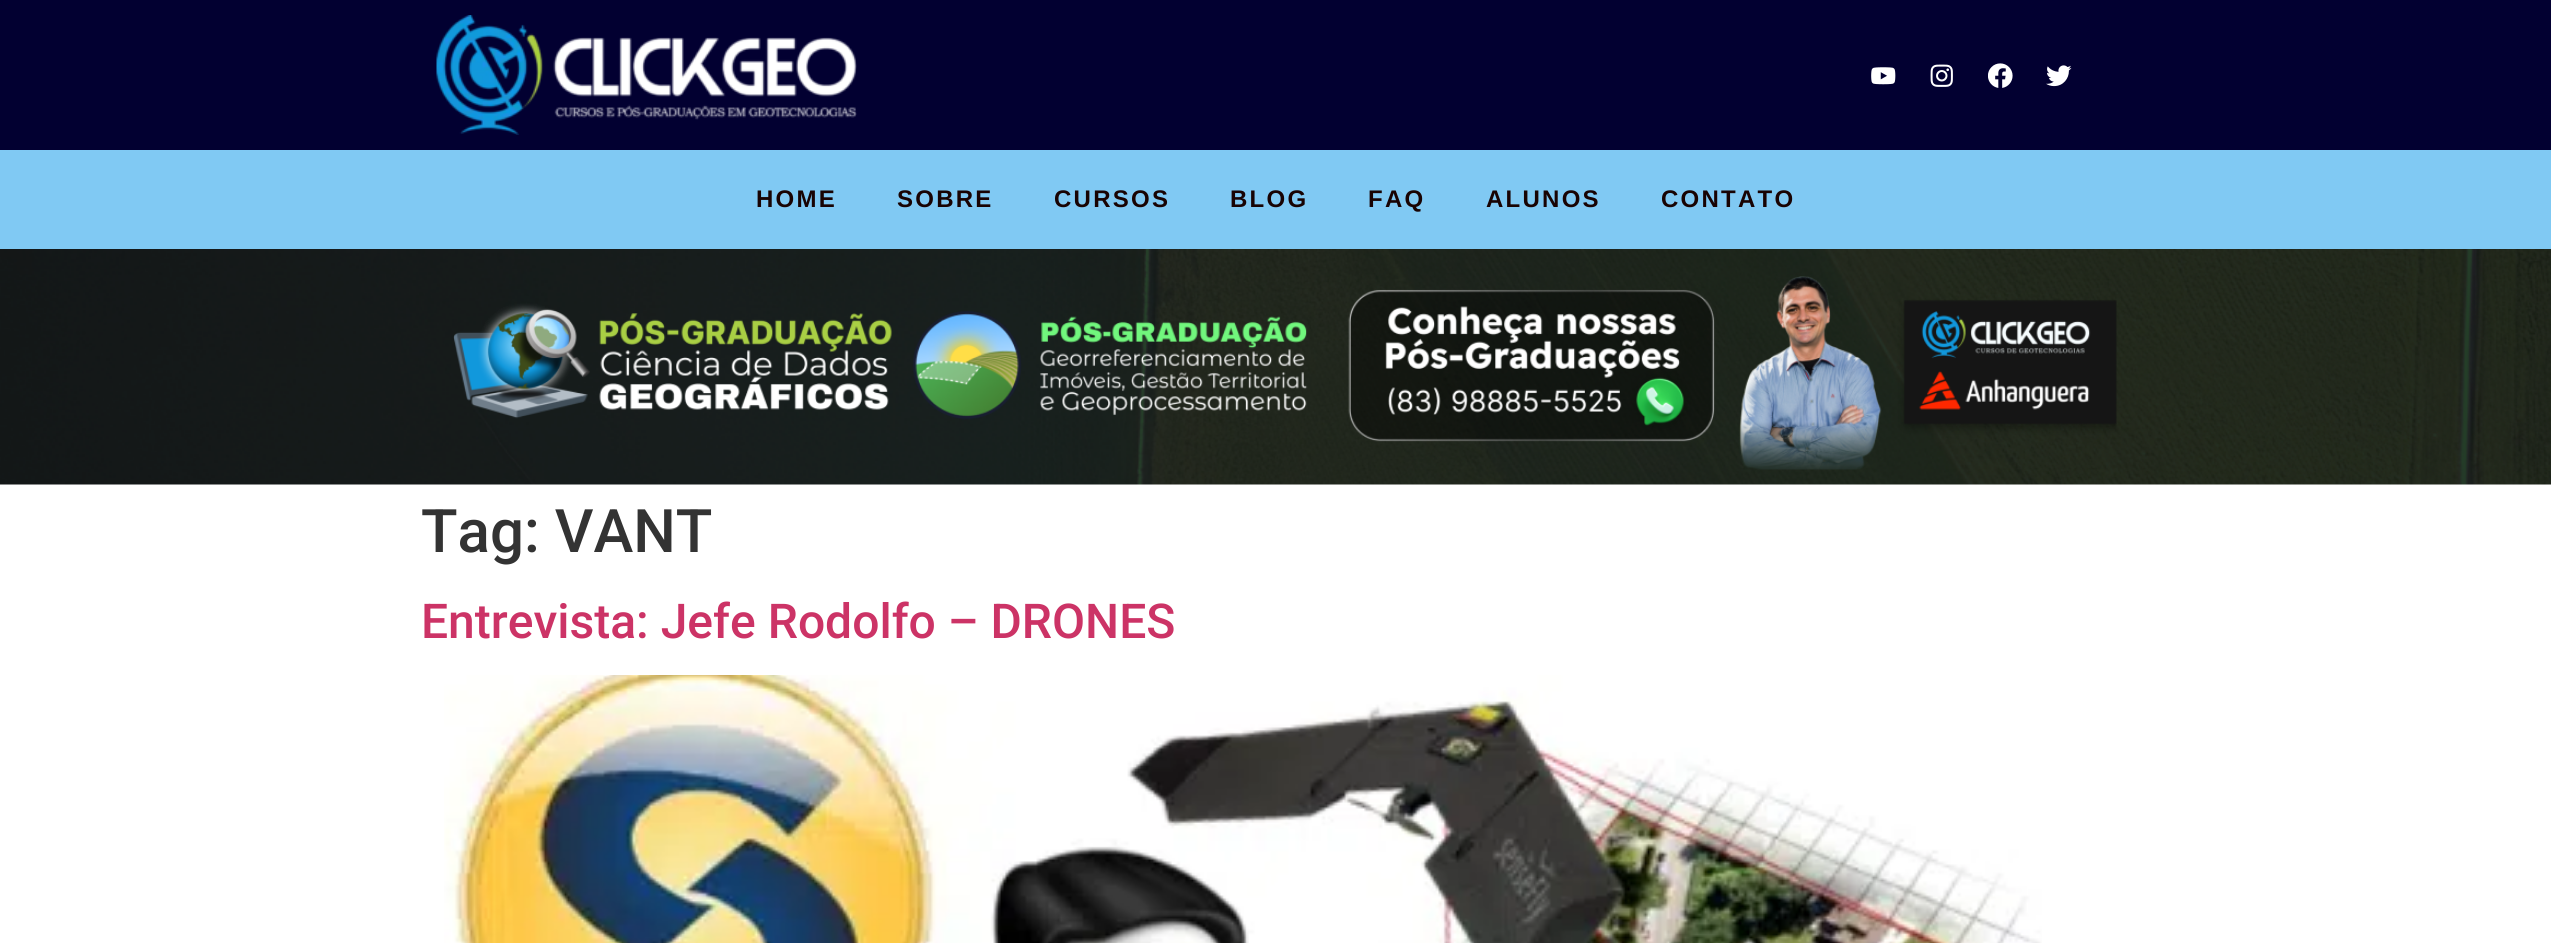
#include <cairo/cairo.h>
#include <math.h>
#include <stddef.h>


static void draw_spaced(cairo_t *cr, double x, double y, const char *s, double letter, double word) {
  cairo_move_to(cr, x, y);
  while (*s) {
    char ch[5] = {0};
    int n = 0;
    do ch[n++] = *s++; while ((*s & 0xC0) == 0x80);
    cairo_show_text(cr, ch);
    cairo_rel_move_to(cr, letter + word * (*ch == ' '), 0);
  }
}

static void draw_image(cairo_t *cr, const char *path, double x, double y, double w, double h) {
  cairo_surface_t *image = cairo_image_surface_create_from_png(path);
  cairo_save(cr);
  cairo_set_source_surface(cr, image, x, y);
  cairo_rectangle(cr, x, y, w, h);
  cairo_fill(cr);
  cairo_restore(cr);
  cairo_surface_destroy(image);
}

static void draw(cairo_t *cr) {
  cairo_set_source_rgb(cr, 1, 1, 1);
  cairo_paint(cr);
  cairo_set_source_rgb(cr, 2 / 255.0, 0, 49 / 255.0);
  cairo_rectangle(cr, 0, 0, 2551, 150);
  cairo_fill(cr);
  draw_image(cr, "images/1.png", 436, 15, 421, 120);
  draw_image(cr, "images/2.png", 1871, 67, 25, 18);
  draw_image(cr, "images/3.png", 1930, 64, 23, 23);
  draw_image(cr, "images/4.png", 1988, 63, 25, 25);
  draw_image(cr, "images/5.png", 2046, 65, 26, 22);
  cairo_set_source_rgb(cr, 128 / 255.0, 201 / 255.0, 243 / 255.0);
  cairo_rectangle(cr, 0, 150, 2551, 99);
  cairo_fill(cr);
  draw_image(cr, "images/6.png", 0, 249, 2551, 236);
  draw_image(cr, "images/7.png", 453, 276, 1664, 194);
  draw_image(cr, "images/8.png", 444, 675, 1598, 268);
  cairo_select_font_face(cr, "Liberation Sans", CAIRO_FONT_SLANT_NORMAL, CAIRO_FONT_WEIGHT_BOLD);
  cairo_set_font_size(cr, 24);
  cairo_set_source_rgb(cr, 24 / 255.0, 3 / 255.0, 3 / 255.0);
  draw_spaced(cr, 756, 207, "HOME", 2.25, 0);
  draw_spaced(cr, 897, 207, "SOBRE", 2.25, 0);
  draw_spaced(cr, 1054, 207, "CURSOS", 2.25, 0);
  draw_spaced(cr, 1230, 207, "BLOG", 2.25, 0);
  draw_spaced(cr, 1368, 207, "FAQ", 2.25, 0);
  draw_spaced(cr, 1486, 207, "ALUNOS", 2.25, 0);
  draw_spaced(cr, 1661, 207, "CONTATO", 2.25, 0);
  cairo_select_font_face(cr, "Roboto Medium", CAIRO_FONT_SLANT_NORMAL, CAIRO_FONT_WEIGHT_NORMAL);
  cairo_set_font_size(cr, 60);
  cairo_set_source_rgb(cr, 51 / 255.0, 51 / 255.0, 51 / 255.0);
  cairo_move_to(cr, 421, 552);
  cairo_show_text(cr, "Tag: VANT");
  cairo_set_font_size(cr, 48);
  cairo_set_source_rgb(cr, 204 / 255.0, 51 / 255.0, 102 / 255.0);
  cairo_move_to(cr, 421, 638);
  cairo_show_text(cr, "Entrevista: Jefe Rodolfo – DRONES");
}

int main(void) {
  cairo_surface_t *surface = cairo_image_surface_create(CAIRO_FORMAT_RGB24, 2551, 943);
  cairo_t *cr = cairo_create(surface);
  cairo_font_options_t *options = cairo_font_options_create();
  cairo_font_options_set_hint_metrics(options, CAIRO_HINT_METRICS_OFF);
  cairo_font_options_set_hint_style(options, CAIRO_HINT_STYLE_NONE);
  cairo_set_font_options(cr, options);
  cairo_set_miter_limit(cr, 4);
  draw(cr);
  cairo_surface_write_to_png(surface, "out.png");
  cairo_font_options_destroy(options);
  cairo_destroy(cr);
  cairo_surface_destroy(surface);
  return 0;
}
